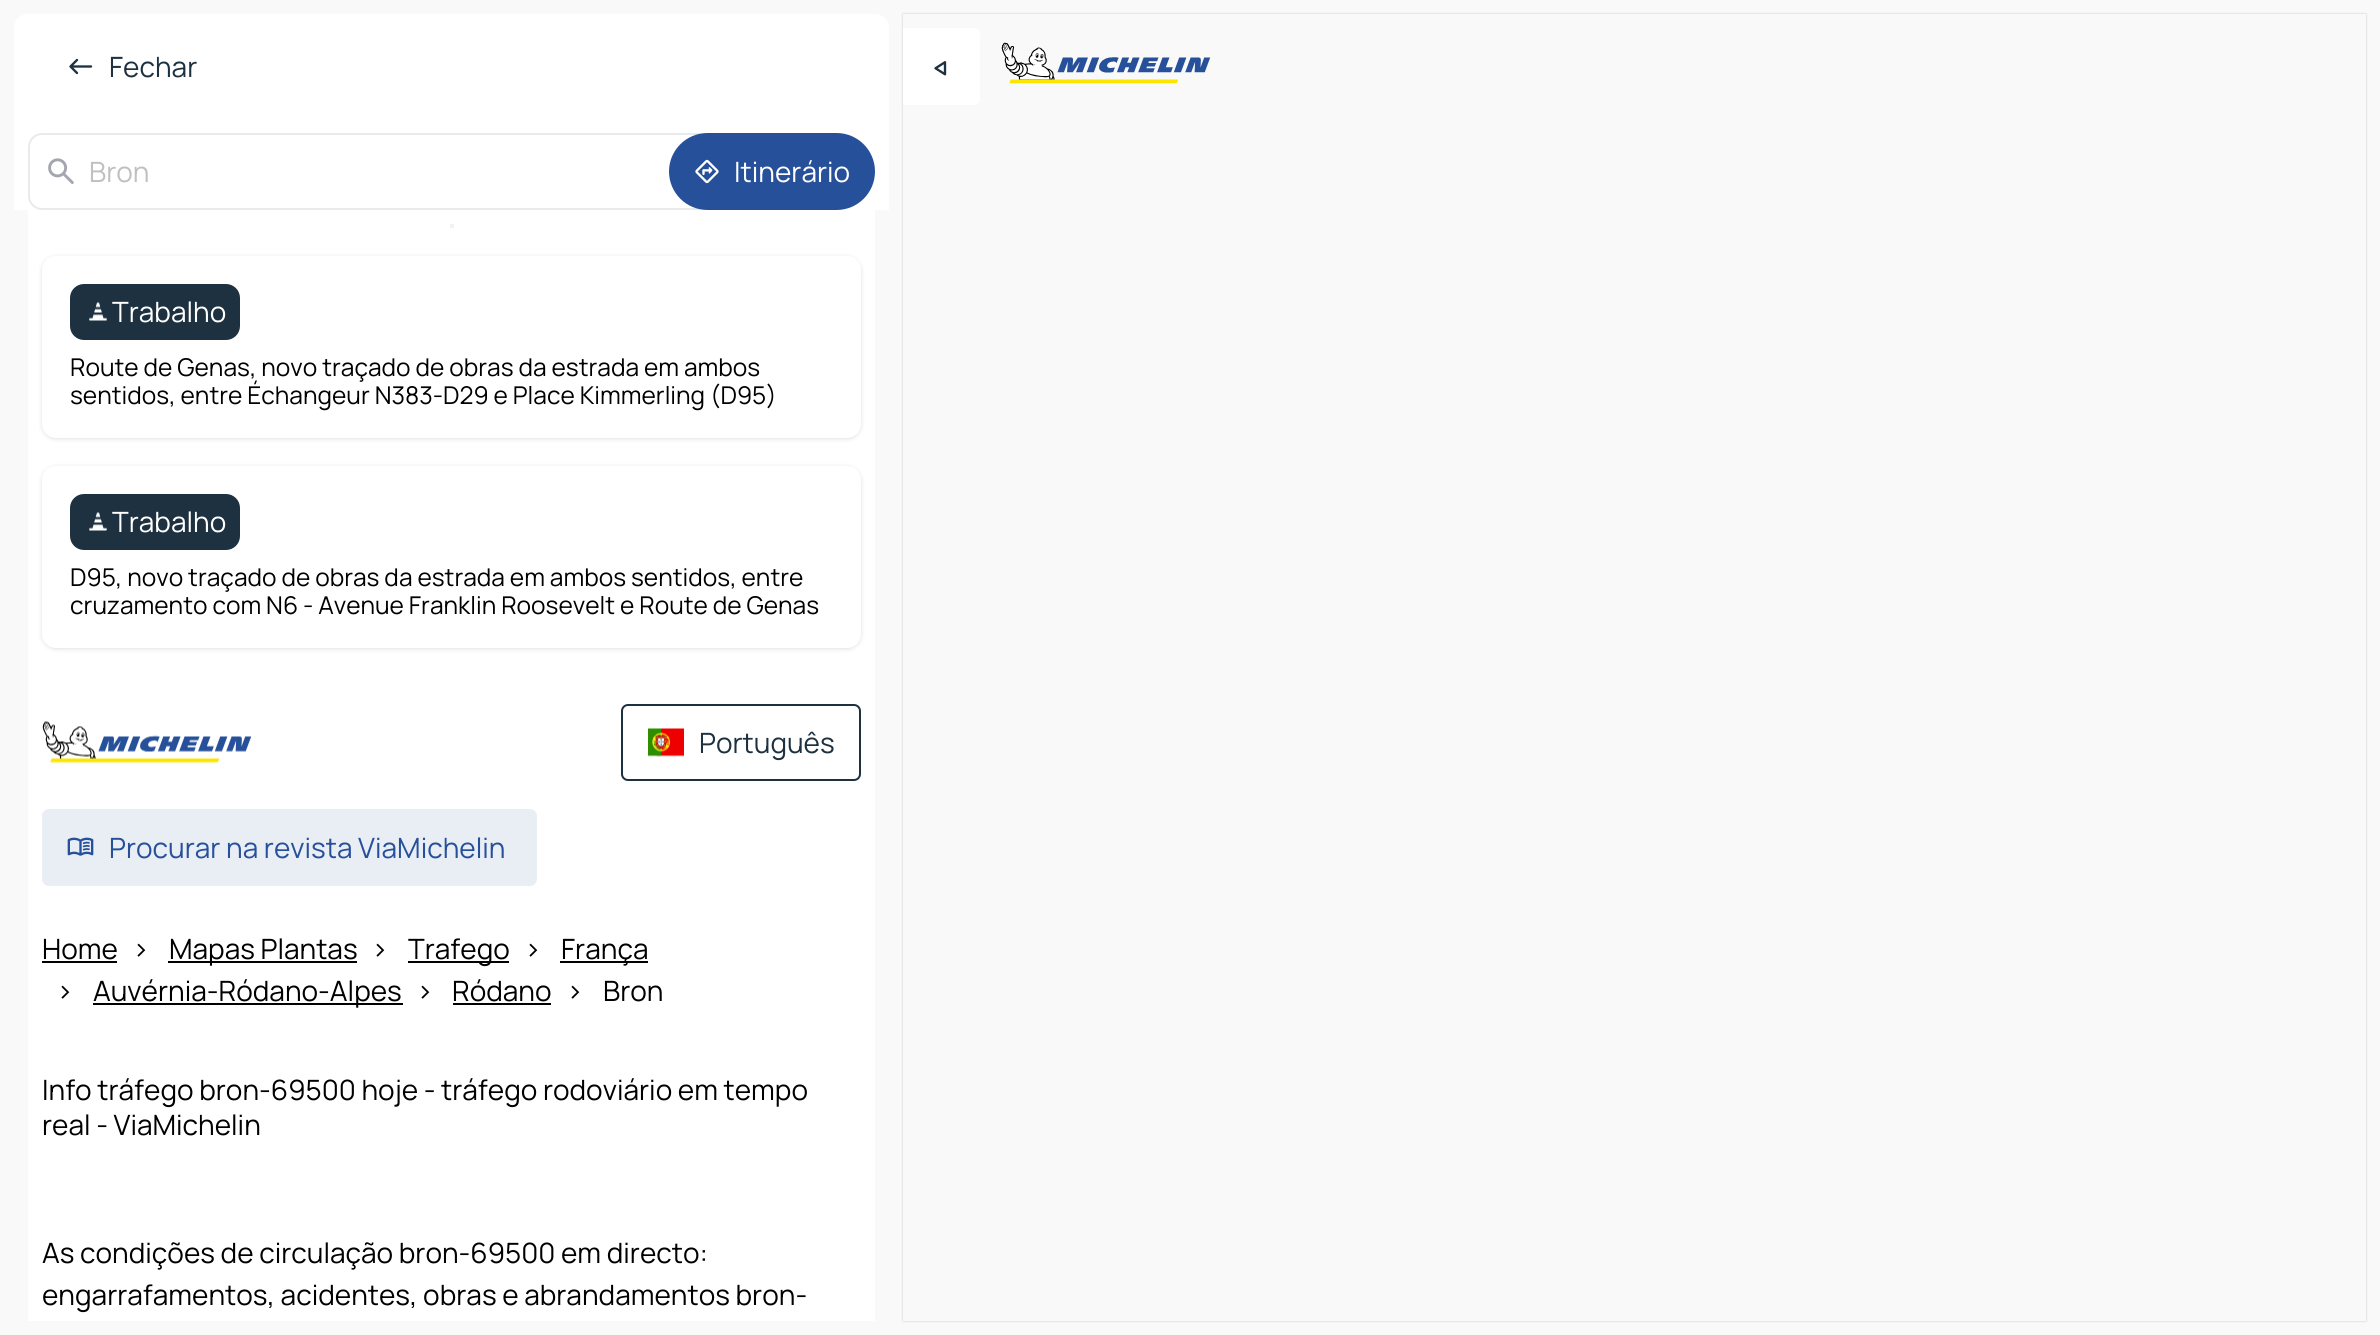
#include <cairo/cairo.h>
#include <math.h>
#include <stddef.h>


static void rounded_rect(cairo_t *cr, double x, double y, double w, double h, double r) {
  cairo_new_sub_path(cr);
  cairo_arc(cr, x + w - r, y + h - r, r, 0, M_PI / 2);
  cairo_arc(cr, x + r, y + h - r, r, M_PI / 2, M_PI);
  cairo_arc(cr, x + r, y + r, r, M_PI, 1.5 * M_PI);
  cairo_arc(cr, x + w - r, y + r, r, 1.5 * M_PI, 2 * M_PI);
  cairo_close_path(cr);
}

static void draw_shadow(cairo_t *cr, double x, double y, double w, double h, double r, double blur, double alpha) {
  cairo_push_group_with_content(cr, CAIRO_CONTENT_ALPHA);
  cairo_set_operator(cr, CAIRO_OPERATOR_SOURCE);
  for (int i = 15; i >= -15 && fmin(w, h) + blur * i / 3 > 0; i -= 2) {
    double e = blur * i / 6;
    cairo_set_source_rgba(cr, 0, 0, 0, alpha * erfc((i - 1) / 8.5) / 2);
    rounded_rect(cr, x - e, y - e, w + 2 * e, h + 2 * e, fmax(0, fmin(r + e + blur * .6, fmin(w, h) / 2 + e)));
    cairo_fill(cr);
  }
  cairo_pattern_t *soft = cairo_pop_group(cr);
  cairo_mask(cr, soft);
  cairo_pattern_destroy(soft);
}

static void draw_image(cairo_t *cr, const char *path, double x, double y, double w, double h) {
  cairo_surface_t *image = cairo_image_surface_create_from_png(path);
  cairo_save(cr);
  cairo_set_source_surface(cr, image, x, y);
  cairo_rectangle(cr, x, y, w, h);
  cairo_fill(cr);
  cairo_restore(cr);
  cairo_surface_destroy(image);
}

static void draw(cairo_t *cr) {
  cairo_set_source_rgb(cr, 249 / 255.0, 249 / 255.0, 249 / 255.0);
  cairo_paint(cr);
  cairo_set_source_rgb(cr, 1, 1, 1);
  rounded_rect(cr, 14, 14, 875, 1307, 14);
  cairo_fill(cr);
  draw_image(cr, "images/1.png", 69, 58, 24, 17);
  rounded_rect(cr, 29, 134, 681, 75, 13);
  cairo_set_source_rgb(cr, 232 / 255.0, 234 / 255.0, 236 / 255.0);
  cairo_stroke(cr);
  draw_image(cr, "images/2.png", 48, 158, 26, 26);
  cairo_set_source_rgb(cr, 39 / 255.0, 80 / 255.0, 155 / 255.0);
  rounded_rect(cr, 669, 133, 206, 77, 38.5);
  cairo_fill(cr);
  draw_image(cr, "images/3.png", 695, 159, 24, 25);
  cairo_set_source_rgb(cr, 249 / 255.0, 249 / 255.0, 249 / 255.0);
  cairo_new_path(cr);
  cairo_move_to(cr, 14, 210);
  cairo_line_to(cr, 889, 210);
  cairo_line_to(cr, 889, 1307);
  cairo_curve_to(cr, 889, 1314.5, 882.5, 1321, 875, 1321);
  cairo_line_to(cr, 28, 1321);
  cairo_curve_to(cr, 20.5, 1321, 14, 1314.5, 14, 1307);
  cairo_close_path(cr);
  cairo_fill(cr);
  cairo_set_source_rgb(cr, 1, 1, 1);
  cairo_rectangle(cr, 28, 210, 847, 1111);
  cairo_fill(cr);
  cairo_set_source_rgb(cr, 242 / 255.0, 242 / 255.0, 242 / 255.0);
  cairo_rectangle(cr, 450, 224, 4, 4);
  cairo_fill(cr);
  cairo_set_source_rgb(cr, 29 / 255.0, 49 / 255.0, 64 / 255.0);
  draw_shadow(cr, 42, 257, 819, 182, 14, 2.5, 0.1);
  draw_shadow(cr, 42, 257, 819, 182, 14, 2, 0.06);
  cairo_set_source_rgb(cr, 1, 1, 1);
  rounded_rect(cr, 42, 256, 819, 182, 14);
  cairo_fill(cr);
  cairo_set_source_rgb(cr, 29 / 255.0, 49 / 255.0, 64 / 255.0);
  rounded_rect(cr, 70, 284, 170, 56, 14);
  cairo_fill(cr);
  draw_image(cr, "images/4.png", 89, 302, 18, 19);
  cairo_set_source_rgb(cr, 29 / 255.0, 49 / 255.0, 64 / 255.0);
  draw_shadow(cr, 42, 467, 819, 182, 14, 2.5, 0.1);
  draw_shadow(cr, 42, 467, 819, 182, 14, 2, 0.06);
  cairo_set_source_rgb(cr, 1, 1, 1);
  rounded_rect(cr, 42, 466, 819, 182, 14);
  cairo_fill(cr);
  cairo_set_source_rgb(cr, 29 / 255.0, 49 / 255.0, 64 / 255.0);
  rounded_rect(cr, 70, 494, 170, 56, 14);
  cairo_fill(cr);
  draw_image(cr, "images/4.png", 89, 512, 18, 19);
  draw_image(cr, "images/5.png", 42, 721, 210, 42);
  rounded_rect(cr, 622, 705, 238, 75, 6);
  cairo_stroke(cr);
  draw_image(cr, "images/6.png", 648, 728, 36, 29);
  cairo_set_source_rgb(cr, 233 / 255.0, 238 / 255.0, 245 / 255.0);
  rounded_rect(cr, 42, 809, 495, 77, 7);
  cairo_fill(cr);
  draw_image(cr, "images/7.png", 67, 837, 27, 19);
  cairo_set_source_rgb(cr, 0, 0, 0);
  cairo_rectangle(cr, 42, 961, 75, 2);
  cairo_fill(cr);
  cairo_rectangle(cr, 168, 961, 189, 2);
  cairo_fill(cr);
  cairo_rectangle(cr, 408, 961, 101, 2);
  cairo_fill(cr);
  cairo_rectangle(cr, 560, 961, 88, 2);
  cairo_fill(cr);
  cairo_rectangle(cr, 93, 1003, 310, 2);
  cairo_fill(cr);
  cairo_rectangle(cr, 453, 1003, 98, 2);
  cairo_fill(cr);
  cairo_save(cr);
  cairo_set_fill_rule(cr, CAIRO_FILL_RULE_EVEN_ODD);
  cairo_new_path(cr);
  cairo_move_to(cr, 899, 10);
  cairo_line_to(cr, 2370, 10);
  cairo_line_to(cr, 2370, 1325);
  cairo_line_to(cr, 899, 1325);
  cairo_close_path(cr);
  cairo_move_to(cr, 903, 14);
  cairo_line_to(cr, 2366, 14);
  cairo_line_to(cr, 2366, 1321);
  cairo_line_to(cr, 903, 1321);
  cairo_close_path(cr);
  cairo_clip(cr);
  cairo_set_source_rgb(cr, 12 / 255.0, 26 / 255.0, 75 / 255.0);
  draw_shadow(cr, 903, 14, 1463, 1307, 0, 1, 0.24);
  cairo_restore(cr);
  cairo_set_source_rgb(cr, 1, 1, 1);
  cairo_new_path(cr);
  cairo_move_to(cr, 903, 28);
  cairo_line_to(cr, 973, 28);
  cairo_curve_to(cr, 977, 28, 980, 31, 980, 35);
  cairo_line_to(cr, 980, 98);
  cairo_curve_to(cr, 980, 102, 977, 105, 973, 105);
  cairo_line_to(cr, 903, 105);
  cairo_close_path(cr);
  cairo_fill(cr);
  draw_image(cr, "images/8.png", 934, 61, 13, 15);
  draw_image(cr, "images/9.png", 1001, 42, 210, 42);
  cairo_select_font_face(cr, "Manrope ExtraLight", CAIRO_FONT_SLANT_NORMAL, CAIRO_FONT_WEIGHT_NORMAL);
  cairo_set_font_size(cr, 28);
  cairo_set_source_rgb(cr, 29 / 255.0, 49 / 255.0, 64 / 255.0);
  cairo_move_to(cr, 109, 77);
  cairo_show_text(cr, "Fechar");
  cairo_set_source_rgb(cr, 192 / 255.0, 192 / 255.0, 192 / 255.0);
  cairo_move_to(cr, 89, 182);
  cairo_show_text(cr, "Bron");
  cairo_set_source_rgb(cr, 1, 1, 1);
  cairo_move_to(cr, 734, 182);
  cairo_show_text(cr, "Itinerário");
  cairo_move_to(cr, 112, 322);
  cairo_show_text(cr, "Trabalho");
  cairo_set_font_size(cr, 24.5);
  cairo_set_source_rgb(cr, 0, 0, 0);
  cairo_move_to(cr, 70, 376);
  cairo_show_text(cr, "Route de Genas, novo traçado de obras da estrada em ambos");
  cairo_move_to(cr, 70, 404);
  cairo_show_text(cr, "sentidos, entre Échangeur N383-D29 e Place Kimmerling (D95)");
  cairo_set_font_size(cr, 28);
  cairo_set_source_rgb(cr, 1, 1, 1);
  cairo_move_to(cr, 112, 532);
  cairo_show_text(cr, "Trabalho");
  cairo_set_font_size(cr, 24.5);
  cairo_set_source_rgb(cr, 0, 0, 0);
  cairo_move_to(cr, 70, 586);
  cairo_show_text(cr, "D95, novo traçado de obras da estrada em ambos sentidos, entre");
  cairo_move_to(cr, 70, 614);
  cairo_show_text(cr, "cruzamento com N6 - Avenue Franklin Roosevelt e Route de Genas");
  cairo_set_font_size(cr, 28);
  cairo_set_source_rgb(cr, 29 / 255.0, 49 / 255.0, 64 / 255.0);
  cairo_move_to(cr, 699, 753);
  cairo_show_text(cr, "Português");
  cairo_set_source_rgb(cr, 39 / 255.0, 80 / 255.0, 155 / 255.0);
  cairo_move_to(cr, 109, 858);
  cairo_show_text(cr, "Procurar na revista ViaMichelin");
  cairo_set_source_rgb(cr, 0, 0, 0);
  cairo_move_to(cr, 42, 959);
  cairo_show_text(cr, "Home");
  cairo_move_to(cr, 132, 959);
  cairo_show_text(cr, ">");
  cairo_move_to(cr, 169, 959);
  cairo_show_text(cr, "Mapas Plantas");
  cairo_move_to(cr, 371, 959);
  cairo_show_text(cr, ">");
  cairo_move_to(cr, 408, 959);
  cairo_show_text(cr, "Trafego");
  cairo_move_to(cr, 524, 959);
  cairo_show_text(cr, ">");
  cairo_move_to(cr, 561, 959);
  cairo_show_text(cr, "França");
  cairo_move_to(cr, 56, 1001);
  cairo_show_text(cr, ">");
  cairo_move_to(cr, 93, 1001);
  cairo_show_text(cr, "Auvérnia-Ródano-Alpes");
  cairo_move_to(cr, 416, 1001);
  cairo_show_text(cr, ">");
  cairo_move_to(cr, 452, 1001);
  cairo_show_text(cr, "Ródano");
  cairo_move_to(cr, 566, 1001);
  cairo_show_text(cr, ">");
  cairo_move_to(cr, 603, 1001);
  cairo_show_text(cr, "Bron");
  cairo_move_to(cr, 42, 1100);
  cairo_show_text(cr, "Info tráfego bron-69500 hoje - tráfego rodoviário em tempo");
  cairo_move_to(cr, 42, 1135);
  cairo_show_text(cr, "real - ViaMichelin");
  cairo_move_to(cr, 42, 1263);
  cairo_show_text(cr, "As condições de circulação bron-69500 em directo:");
  cairo_move_to(cr, 42, 1305);
  cairo_show_text(cr, "engarrafamentos, acidentes, obras e abrandamentos bron-");
}

int main(void) {
  cairo_surface_t *surface = cairo_image_surface_create(CAIRO_FORMAT_RGB24, 2380, 1335);
  cairo_t *cr = cairo_create(surface);
  cairo_font_options_t *options = cairo_font_options_create();
  cairo_font_options_set_hint_metrics(options, CAIRO_HINT_METRICS_OFF);
  cairo_font_options_set_hint_style(options, CAIRO_HINT_STYLE_NONE);
  cairo_set_font_options(cr, options);
  cairo_set_miter_limit(cr, 4);
  draw(cr);
  cairo_surface_write_to_png(surface, "out.png");
  cairo_font_options_destroy(options);
  cairo_destroy(cr);
  cairo_surface_destroy(surface);
  return 0;
}
